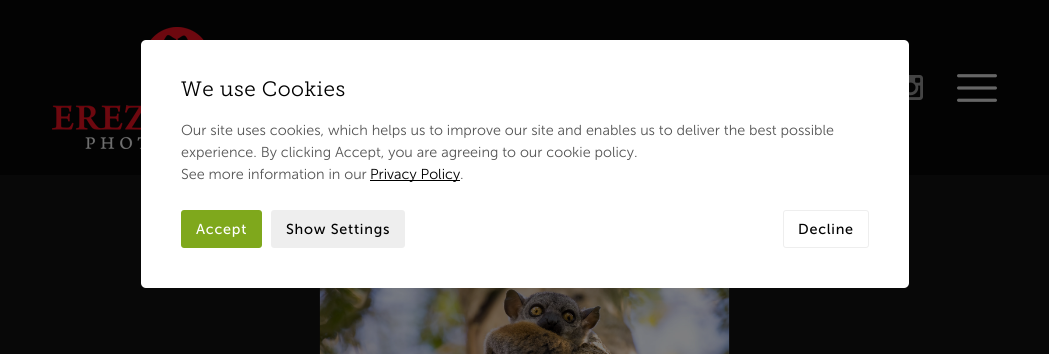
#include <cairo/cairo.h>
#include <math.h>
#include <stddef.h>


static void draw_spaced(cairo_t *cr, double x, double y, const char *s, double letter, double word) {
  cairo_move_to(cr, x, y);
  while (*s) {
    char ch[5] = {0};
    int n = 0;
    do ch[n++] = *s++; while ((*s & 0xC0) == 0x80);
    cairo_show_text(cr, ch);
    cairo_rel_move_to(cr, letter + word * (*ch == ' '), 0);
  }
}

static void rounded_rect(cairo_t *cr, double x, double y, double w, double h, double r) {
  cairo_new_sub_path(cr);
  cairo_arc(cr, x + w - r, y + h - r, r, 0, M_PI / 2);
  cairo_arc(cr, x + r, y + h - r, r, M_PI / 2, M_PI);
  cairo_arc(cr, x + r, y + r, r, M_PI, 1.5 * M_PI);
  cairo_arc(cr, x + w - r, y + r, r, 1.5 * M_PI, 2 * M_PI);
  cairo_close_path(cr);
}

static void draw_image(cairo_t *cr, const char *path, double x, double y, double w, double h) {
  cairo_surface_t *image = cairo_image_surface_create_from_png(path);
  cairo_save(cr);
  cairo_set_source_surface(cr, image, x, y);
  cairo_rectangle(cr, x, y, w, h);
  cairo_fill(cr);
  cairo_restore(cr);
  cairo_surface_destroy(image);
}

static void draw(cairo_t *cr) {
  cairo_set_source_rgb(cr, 8 / 255.0, 8 / 255.0, 8 / 255.0);
  cairo_paint(cr);
  cairo_set_source_rgb(cr, 3 / 255.0, 3 / 255.0, 3 / 255.0);
  cairo_rectangle(cr, 0, 0, 1049, 175);
  cairo_fill(cr);
  draw_image(cr, "images/1.png", 52, 27, 152, 122);
  draw_image(cr, "images/2.png", 909, 75, 14, 25);
  draw_image(cr, "images/3.png", 957, 74, 40, 28);
  cairo_set_source_rgb(cr, 1, 1, 1);
  rounded_rect(cr, 141, 40, 768, 248, 5);
  cairo_fill(cr);
  cairo_set_source_rgb(cr, 0, 0, 0);
  cairo_rectangle(cr, 370, 180, 90, 1);
  cairo_fill(cr);
  cairo_set_source_rgb(cr, 127 / 255.0, 168 / 255.0, 28 / 255.0);
  rounded_rect(cr, 181, 210, 81, 38, 3);
  cairo_fill(cr);
  cairo_set_source_rgb(cr, 238 / 255.0, 238 / 255.0, 238 / 255.0);
  rounded_rect(cr, 271, 210, 134, 38, 3);
  cairo_fill(cr);
  rounded_rect(cr, 783.5, 210.5, 85, 37, 2.5);
  cairo_set_line_width(cr, 1);
  cairo_stroke(cr);
  draw_image(cr, "images/4.png", 319, 288, 411, 66);
  cairo_select_font_face(cr, "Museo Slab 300 Light", CAIRO_FONT_SLANT_NORMAL, CAIRO_FONT_WEIGHT_NORMAL);
  cairo_set_font_size(cr, 20.75);
  cairo_set_source_rgb(cr, 0, 0, 0);
  draw_spaced(cr, 181, 96, "We use Cookies", 0.5, 0);
  cairo_select_font_face(cr, "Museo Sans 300 Light", CAIRO_FONT_SLANT_NORMAL, CAIRO_FONT_WEIGHT_NORMAL);
  cairo_set_font_size(cr, 14.4);
  cairo_set_source_rgb(cr, 85 / 255.0, 85 / 255.0, 85 / 255.0);
  cairo_move_to(cr, 181, 135);
  cairo_show_text(cr, "Our site uses cookies, which helps us to improve our site and enables us to deliver the best possible");
  cairo_move_to(cr, 181, 157);
  cairo_show_text(cr, "experience. By clicking Accept, you are agreeing to our cookie policy.");
  cairo_move_to(cr, 181, 179);
  cairo_show_text(cr, "See more information in our");
  cairo_set_source_rgb(cr, 0, 0, 0);
  cairo_move_to(cr, 370, 179);
  cairo_show_text(cr, "Privacy Policy");
  cairo_set_source_rgb(cr, 85 / 255.0, 85 / 255.0, 85 / 255.0);
  cairo_move_to(cr, 460, 179);
  cairo_show_text(cr, ".");
  cairo_select_font_face(cr, "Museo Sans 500", CAIRO_FONT_SLANT_NORMAL, CAIRO_FONT_WEIGHT_NORMAL);
  cairo_set_source_rgb(cr, 1, 1, 1);
  draw_spaced(cr, 196, 234, "Accept", 0.75, 0);
  cairo_set_source_rgb(cr, 0, 0, 0);
  draw_spaced(cr, 286, 234, "Show Settings", 0.75, 0);
  draw_spaced(cr, 798, 234, "Decline", 0.75, 0);
}

int main(void) {
  cairo_surface_t *surface = cairo_image_surface_create(CAIRO_FORMAT_RGB24, 1049, 354);
  cairo_t *cr = cairo_create(surface);
  cairo_font_options_t *options = cairo_font_options_create();
  cairo_font_options_set_hint_metrics(options, CAIRO_HINT_METRICS_OFF);
  cairo_font_options_set_hint_style(options, CAIRO_HINT_STYLE_NONE);
  cairo_set_font_options(cr, options);
  cairo_set_miter_limit(cr, 4);
  draw(cr);
  cairo_surface_write_to_png(surface, "out.png");
  cairo_font_options_destroy(options);
  cairo_destroy(cr);
  cairo_surface_destroy(surface);
  return 0;
}
